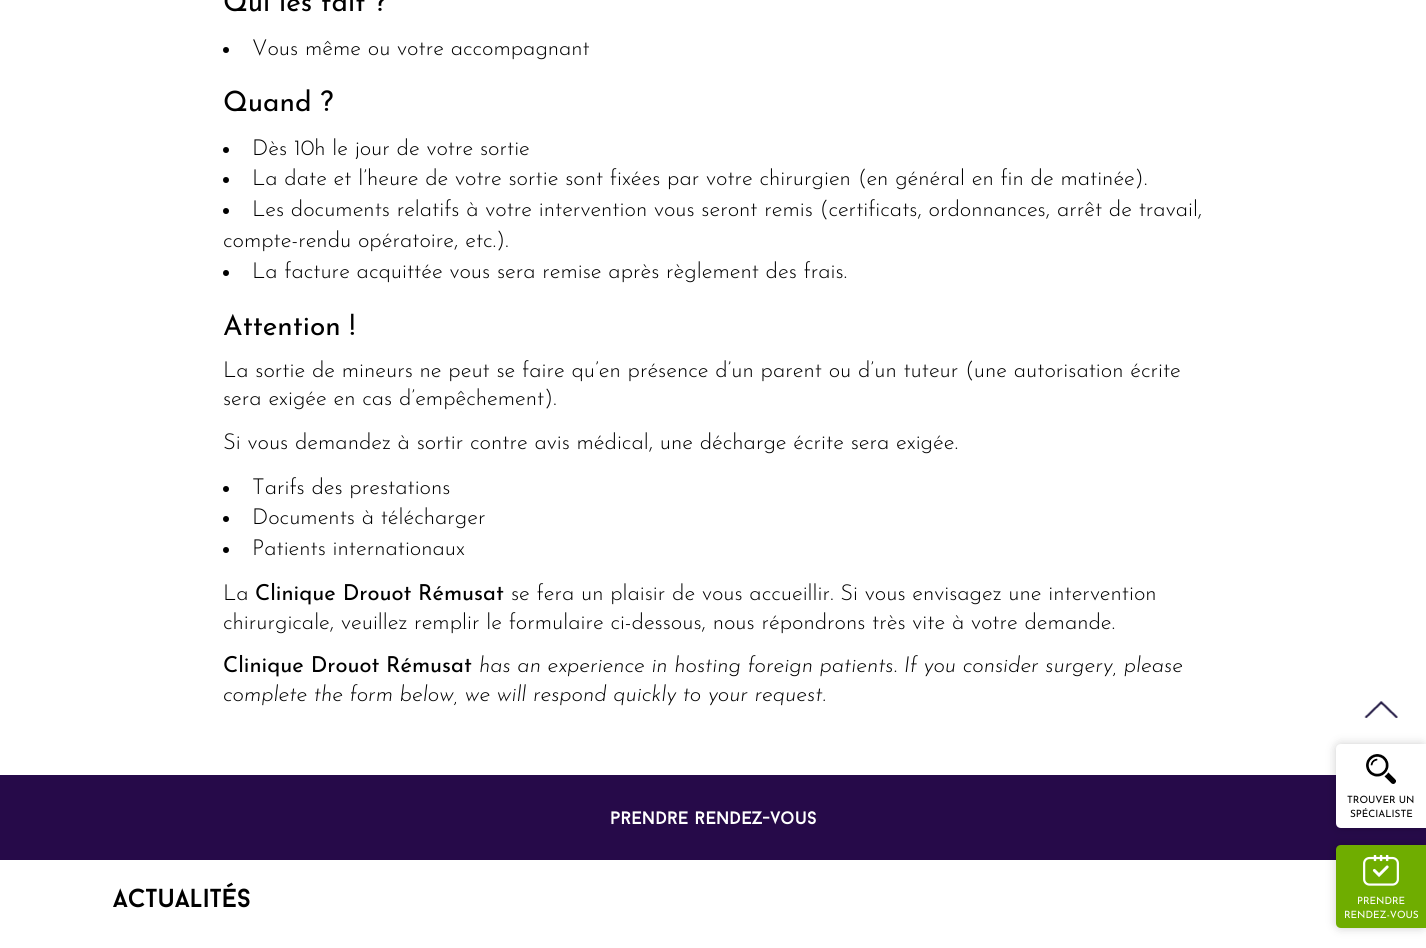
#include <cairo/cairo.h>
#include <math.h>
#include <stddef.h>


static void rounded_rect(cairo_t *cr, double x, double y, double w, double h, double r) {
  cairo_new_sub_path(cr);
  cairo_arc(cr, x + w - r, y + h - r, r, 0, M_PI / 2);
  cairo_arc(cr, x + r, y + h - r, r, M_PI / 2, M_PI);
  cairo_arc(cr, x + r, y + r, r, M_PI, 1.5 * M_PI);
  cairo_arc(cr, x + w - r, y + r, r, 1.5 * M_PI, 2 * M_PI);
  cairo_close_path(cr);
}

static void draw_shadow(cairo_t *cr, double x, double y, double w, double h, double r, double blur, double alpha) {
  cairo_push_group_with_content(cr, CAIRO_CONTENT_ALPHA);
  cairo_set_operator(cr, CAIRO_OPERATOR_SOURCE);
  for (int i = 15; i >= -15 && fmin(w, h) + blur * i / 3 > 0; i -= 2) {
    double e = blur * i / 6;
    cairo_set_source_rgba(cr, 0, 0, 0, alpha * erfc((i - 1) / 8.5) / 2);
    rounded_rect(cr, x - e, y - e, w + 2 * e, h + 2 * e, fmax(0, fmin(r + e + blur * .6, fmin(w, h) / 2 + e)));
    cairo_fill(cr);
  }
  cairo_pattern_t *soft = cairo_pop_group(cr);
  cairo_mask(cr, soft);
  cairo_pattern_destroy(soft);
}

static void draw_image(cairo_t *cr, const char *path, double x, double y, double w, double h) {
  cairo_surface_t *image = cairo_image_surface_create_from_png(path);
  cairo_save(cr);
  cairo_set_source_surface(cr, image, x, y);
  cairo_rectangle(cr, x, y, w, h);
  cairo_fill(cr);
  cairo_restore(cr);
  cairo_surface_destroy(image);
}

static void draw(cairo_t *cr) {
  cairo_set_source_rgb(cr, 1, 1, 1);
  cairo_paint(cr);
  cairo_set_source_rgb(cr, 0, 0, 0);
  cairo_arc(cr, 226, 50, 3, 0, 2 * M_PI);
  cairo_fill(cr);
  cairo_arc(cr, 226, 150, 3, 0, 2 * M_PI);
  cairo_fill(cr);
  cairo_arc(cr, 226, 180, 3, 0, 2 * M_PI);
  cairo_fill(cr);
  cairo_arc(cr, 226, 211, 3, 0, 2 * M_PI);
  cairo_fill(cr);
  cairo_arc(cr, 226, 273, 3, 0, 2 * M_PI);
  cairo_fill(cr);
  cairo_arc(cr, 226, 489, 3, 0, 2 * M_PI);
  cairo_fill(cr);
  cairo_arc(cr, 226, 519, 3, 0, 2 * M_PI);
  cairo_fill(cr);
  cairo_arc(cr, 226, 550, 3, 0, 2 * M_PI);
  cairo_fill(cr);
  draw_image(cr, "images/1.png", 1364, 701, 34, 17);
  cairo_set_source_rgb(cr, 38 / 255.0, 10 / 255.0, 73 / 255.0);
  cairo_rectangle(cr, 0, 775, 1426, 85);
  cairo_fill(cr);
  cairo_set_source_rgb(cr, 0, 0, 0);
  draw_shadow(cr, 1336, 744, 90, 84, 5, 5, 0.2);
  cairo_set_source_rgb(cr, 1, 1, 1);
  cairo_new_path(cr);
  cairo_move_to(cr, 1341, 744);
  cairo_line_to(cr, 1426, 744);
  cairo_line_to(cr, 1426, 828);
  cairo_line_to(cr, 1341, 828);
  cairo_curve_to(cr, 1338, 828, 1336, 826, 1336, 823);
  cairo_line_to(cr, 1336, 749);
  cairo_curve_to(cr, 1336, 746, 1338, 744, 1341, 744);
  cairo_close_path(cr);
  cairo_fill(cr);
  draw_image(cr, "images/2.png", 1366, 754, 30, 30);
  cairo_set_source_rgb(cr, 0, 0, 0);
  draw_shadow(cr, 1336, 845, 90, 83, 5, 5, 0.2);
  cairo_set_source_rgb(cr, 111 / 255.0, 173 / 255.0, 0);
  cairo_new_path(cr);
  cairo_move_to(cr, 1341, 845);
  cairo_line_to(cr, 1426, 845);
  cairo_line_to(cr, 1426, 928);
  cairo_line_to(cr, 1341, 928);
  cairo_curve_to(cr, 1338, 928, 1336, 926, 1336, 923);
  cairo_line_to(cr, 1336, 850);
  cairo_curve_to(cr, 1336, 847, 1338, 845, 1341, 845);
  cairo_close_path(cr);
  cairo_fill(cr);
  draw_image(cr, "images/3.png", 1363, 855, 36, 31);
  cairo_select_font_face(cr, "Josefin Sans", CAIRO_FONT_SLANT_NORMAL, CAIRO_FONT_WEIGHT_NORMAL);
  cairo_set_font_size(cr, 28);
  cairo_set_source_rgb(cr, 0, 0, 0);
  cairo_move_to(cr, 223, 11);
  cairo_show_text(cr, "Qui les fait ?");
  cairo_select_font_face(cr, "Josefin Sans Light", CAIRO_FONT_SLANT_NORMAL, CAIRO_FONT_WEIGHT_NORMAL);
  cairo_set_font_size(cr, 22);
  cairo_move_to(cr, 252, 55);
  cairo_show_text(cr, "Vous même ou votre accompagnant");
  cairo_select_font_face(cr, "Josefin Sans", CAIRO_FONT_SLANT_NORMAL, CAIRO_FONT_WEIGHT_NORMAL);
  cairo_set_font_size(cr, 28);
  cairo_move_to(cr, 223, 111);
  cairo_show_text(cr, "Quand ?");
  cairo_select_font_face(cr, "Josefin Sans Light", CAIRO_FONT_SLANT_NORMAL, CAIRO_FONT_WEIGHT_NORMAL);
  cairo_set_font_size(cr, 22);
  cairo_move_to(cr, 252, 155);
  cairo_show_text(cr, "Dès 10h le jour de votre sortie");
  cairo_move_to(cr, 252, 185);
  cairo_show_text(cr, "La date et l’heure de votre sortie sont fixées par votre chirurgien (en général en fin de matinée).");
  cairo_move_to(cr, 252, 216);
  cairo_show_text(cr, "Les documents relatifs à votre intervention vous seront remis (certificats, ordonnances, arrêt de travail,");
  cairo_move_to(cr, 223, 247);
  cairo_show_text(cr, "compte-rendu opératoire, etc.).");
  cairo_move_to(cr, 252, 278);
  cairo_show_text(cr, "La facture acquittée vous sera remise après règlement des frais.");
  cairo_select_font_face(cr, "Josefin Sans", CAIRO_FONT_SLANT_NORMAL, CAIRO_FONT_WEIGHT_NORMAL);
  cairo_set_font_size(cr, 28);
  cairo_move_to(cr, 223, 335);
  cairo_show_text(cr, "Attention !");
  cairo_select_font_face(cr, "Josefin Sans Light", CAIRO_FONT_SLANT_NORMAL, CAIRO_FONT_WEIGHT_NORMAL);
  cairo_set_font_size(cr, 22);
  cairo_move_to(cr, 223, 377);
  cairo_show_text(cr, "La sortie de mineurs ne peut se faire qu’en présence d’un parent ou d’un tuteur (une autorisation écrite");
  cairo_move_to(cr, 223, 405);
  cairo_show_text(cr, "sera exigée en cas d’empêchement).");
  cairo_move_to(cr, 223, 449);
  cairo_show_text(cr, "Si vous demandez à sortir contre avis médical, une décharge écrite sera exigée.");
  cairo_move_to(cr, 252, 494);
  cairo_show_text(cr, "Tarifs des prestations");
  cairo_move_to(cr, 252, 524);
  cairo_show_text(cr, "Documents à télécharger");
  cairo_move_to(cr, 252, 555);
  cairo_show_text(cr, "Patients internationaux");
  cairo_move_to(cr, 223, 600);
  cairo_show_text(cr, "La");
  cairo_select_font_face(cr, "Josefin Sans", CAIRO_FONT_SLANT_NORMAL, CAIRO_FONT_WEIGHT_NORMAL);
  cairo_move_to(cr, 255, 600);
  cairo_show_text(cr, "Clinique Drouot");
  cairo_move_to(cr, 418, 600);
  cairo_show_text(cr, "Rémusat");
  cairo_select_font_face(cr, "Josefin Sans Light", CAIRO_FONT_SLANT_NORMAL, CAIRO_FONT_WEIGHT_NORMAL);
  cairo_move_to(cr, 511, 600);
  cairo_show_text(cr, "se fera un plaisir de vous accueillir. Si vous envisagez une intervention");
  cairo_move_to(cr, 223, 629);
  cairo_show_text(cr, "chirurgicale, veuillez remplir le formulaire ci-dessous, nous répondrons très vite à votre demande.");
  cairo_select_font_face(cr, "Josefin Sans", CAIRO_FONT_SLANT_NORMAL, CAIRO_FONT_WEIGHT_NORMAL);
  cairo_move_to(cr, 223, 672);
  cairo_show_text(cr, "Clinique Drouot");
  cairo_move_to(cr, 386, 672);
  cairo_show_text(cr, "Rémusat");
  cairo_select_font_face(cr, "Josefin Sans Light", CAIRO_FONT_SLANT_ITALIC, CAIRO_FONT_WEIGHT_NORMAL);
  cairo_move_to(cr, 479, 672);
  cairo_show_text(cr, "has an experience in hosting foreign patients. If you consider surgery, please");
  cairo_move_to(cr, 223, 701);
  cairo_show_text(cr, "complete the form below, we will respond quickly to your request.");
  cairo_select_font_face(cr, "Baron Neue", CAIRO_FONT_SLANT_NORMAL, CAIRO_FONT_WEIGHT_NORMAL);
  cairo_set_font_size(cr, 18);
  cairo_set_source_rgb(cr, 1, 1, 1);
  cairo_move_to(cr, 610, 824);
  cairo_show_text(cr, "prendre rendez-vous");
  cairo_select_font_face(cr, "Josefin Sans", CAIRO_FONT_SLANT_NORMAL, CAIRO_FONT_WEIGHT_NORMAL);
  cairo_set_font_size(cr, 10);
  cairo_set_source_rgb(cr, 0, 0, 0);
  cairo_move_to(cr, 1347, 803);
  cairo_show_text(cr, "TROUVER UN");
  cairo_move_to(cr, 1350, 817);
  cairo_show_text(cr, "SPÉCIALISTE");
  cairo_set_source_rgb(cr, 1, 1, 1);
  cairo_move_to(cr, 1357, 904);
  cairo_show_text(cr, "PRENDRE");
  cairo_move_to(cr, 1344, 918);
  cairo_show_text(cr, "RENDEZ-VOUS");
  cairo_select_font_face(cr, "Baron Neue", CAIRO_FONT_SLANT_NORMAL, CAIRO_FONT_WEIGHT_NORMAL);
  cairo_set_font_size(cr, 26);
  cairo_set_source_rgb(cr, 0, 0, 0);
  cairo_move_to(cr, 113, 907);
  cairo_show_text(cr, "actualités");
}

int main(void) {
  cairo_surface_t *surface = cairo_image_surface_create(CAIRO_FORMAT_RGB24, 1426, 948);
  cairo_t *cr = cairo_create(surface);
  cairo_font_options_t *options = cairo_font_options_create();
  cairo_font_options_set_hint_metrics(options, CAIRO_HINT_METRICS_OFF);
  cairo_font_options_set_hint_style(options, CAIRO_HINT_STYLE_NONE);
  cairo_set_font_options(cr, options);
  cairo_set_miter_limit(cr, 4);
  draw(cr);
  cairo_surface_write_to_png(surface, "out.png");
  cairo_font_options_destroy(options);
  cairo_destroy(cr);
  cairo_surface_destroy(surface);
  return 0;
}
